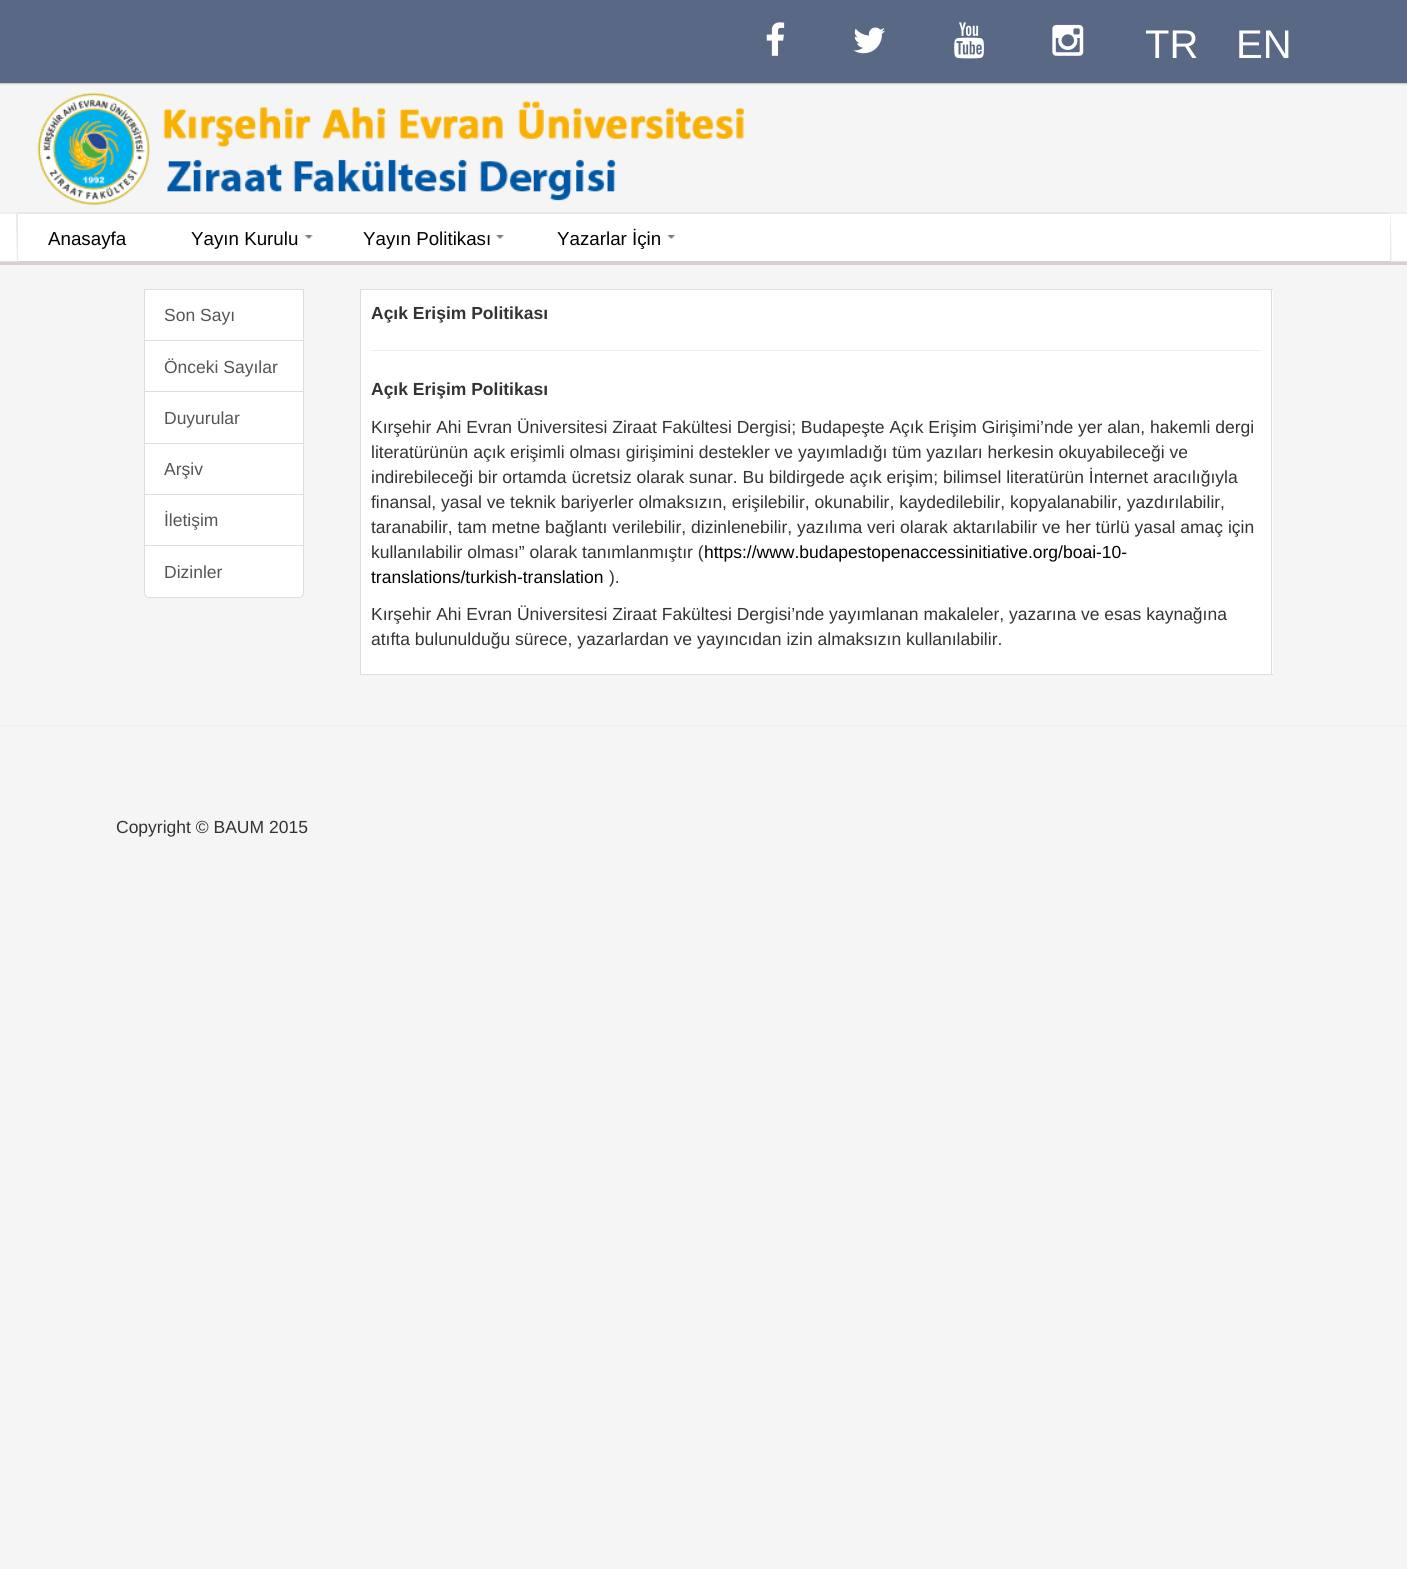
#include <cairo/cairo.h>
#include <math.h>
#include <stddef.h>


static void rounded_rect(cairo_t *cr, double x, double y, double w, double h, double r) {
  cairo_new_sub_path(cr);
  cairo_arc(cr, x + w - r, y + h - r, r, 0, M_PI / 2);
  cairo_arc(cr, x + r, y + h - r, r, M_PI / 2, M_PI);
  cairo_arc(cr, x + r, y + r, r, M_PI, 1.5 * M_PI);
  cairo_arc(cr, x + w - r, y + r, r, 1.5 * M_PI, 2 * M_PI);
  cairo_close_path(cr);
}

static void draw_shadow(cairo_t *cr, double x, double y, double w, double h, double r, double blur, double alpha) {
  cairo_push_group_with_content(cr, CAIRO_CONTENT_ALPHA);
  cairo_set_operator(cr, CAIRO_OPERATOR_SOURCE);
  for (int i = 15; i >= -15 && fmin(w, h) + blur * i / 3 > 0; i -= 2) {
    double e = blur * i / 6;
    cairo_set_source_rgba(cr, 0, 0, 0, alpha * erfc((i - 1) / 8.5) / 2);
    rounded_rect(cr, x - e, y - e, w + 2 * e, h + 2 * e, fmax(0, fmin(r + e + blur * .6, fmin(w, h) / 2 + e)));
    cairo_fill(cr);
  }
  cairo_pattern_t *soft = cairo_pop_group(cr);
  cairo_mask(cr, soft);
  cairo_pattern_destroy(soft);
}

static void draw_image(cairo_t *cr, const char *path, double x, double y, double w, double h) {
  cairo_surface_t *image = cairo_image_surface_create_from_png(path);
  cairo_save(cr);
  cairo_set_source_surface(cr, image, x, y);
  cairo_rectangle(cr, x, y, w, h);
  cairo_fill(cr);
  cairo_restore(cr);
  cairo_surface_destroy(image);
}

static void draw(cairo_t *cr) {
  cairo_set_source_rgb(cr, 245 / 255.0, 245 / 255.0, 245 / 255.0);
  cairo_paint(cr);
  cairo_set_source_rgb(cr, 204 / 255.0, 204 / 255.0, 204 / 255.0);
  draw_shadow(cr, 0, 0, 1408, 84, 0, 1, 1);
  cairo_set_source_rgb(cr, 89 / 255.0, 104 / 255.0, 133 / 255.0);
  cairo_rectangle(cr, 0, 0, 1407, 83);
  cairo_fill(cr);
  cairo_set_source_rgb(cr, 204 / 255.0, 204 / 255.0, 204 / 255.0);
  cairo_rectangle(cr, 0, 83, 1407, 1);
  cairo_fill(cr);
  draw_image(cr, "images/1.png", 766, 22, 19, 34);
  draw_image(cr, "images/2.png", 853, 27, 32, 27);
  draw_image(cr, "images/3.png", 954, 22, 30, 37);
  draw_image(cr, "images/4.png", 1052, 24, 32, 32);
  draw_image(cr, "images/5.png", 37, 92, 707, 114);
  draw_image(cr, "images/6.png", 0, 212, 1407, 53);
  cairo_set_source_rgb(cr, 236 / 255.0, 230 / 255.0, 232 / 255.0);
  cairo_new_path(cr);
  cairo_move_to(cr, 19, 214);
  cairo_line_to(cr, 18, 214);
  cairo_line_to(cr, 17, 213);
  cairo_line_to(cr, 17, 212);
  cairo_line_to(cr, 1390, 212);
  cairo_line_to(cr, 1390, 213);
  cairo_line_to(cr, 1390, 214);
  cairo_line_to(cr, 1389, 214);
  cairo_close_path(cr);
  cairo_fill(cr);
  cairo_new_path(cr);
  cairo_move_to(cr, 1390, 213);
  cairo_curve_to(cr, 1391, 215, 1392, 261, 1391, 264);
  cairo_line_to(cr, 1390, 261);
  cairo_line_to(cr, 1390, 214);
  cairo_close_path(cr);
  cairo_fill(cr);
  cairo_set_source_rgb(cr, 217 / 255.0, 206 / 255.0, 210 / 255.0);
  cairo_new_path(cr);
  cairo_move_to(cr, 19, 265);
  cairo_line_to(cr, 1389, 265);
  cairo_curve_to(cr, 1390, 265, 1390, 265, 1391, 264);
  cairo_line_to(cr, 1390, 261);
  cairo_line_to(cr, 18, 261);
  cairo_line_to(cr, 18, 260);
  cairo_line_to(cr, 17, 264);
  cairo_close_path(cr);
  cairo_fill(cr);
  cairo_set_source_rgb(cr, 236 / 255.0, 230 / 255.0, 232 / 255.0);
  cairo_new_path(cr);
  cairo_move_to(cr, 16, 214);
  cairo_line_to(cr, 17, 213);
  cairo_line_to(cr, 18, 214);
  cairo_line_to(cr, 18, 260);
  cairo_line_to(cr, 17, 264);
  cairo_close_path(cr);
  cairo_fill(cr);
  draw_image(cr, "images/7.png", 305, 235, 8, 4);
  draw_image(cr, "images/8.png", 496, 235, 8, 4);
  draw_image(cr, "images/9.png", 667, 235, 8, 4);
  cairo_set_source_rgb(cr, 1, 1, 1);
  cairo_rectangle(cr, 144.5, 289.5, 159, 51);
  cairo_fill_preserve(cr);
  cairo_set_source_rgb(cr, 221 / 255.0, 221 / 255.0, 221 / 255.0);
  cairo_set_line_width(cr, 1);
  cairo_stroke(cr);
  cairo_set_source_rgb(cr, 1, 1, 1);
  cairo_rectangle(cr, 145, 341, 158, 50);
  cairo_fill(cr);
  cairo_rectangle(cr, 144.5, 340.5, 159, 52);
  cairo_set_source_rgb(cr, 221 / 255.0, 221 / 255.0, 221 / 255.0);
  cairo_stroke(cr);
  cairo_set_source_rgb(cr, 1, 1, 1);
  cairo_rectangle(cr, 144.5, 391.5, 159, 52);
  cairo_fill_preserve(cr);
  cairo_set_source_rgb(cr, 221 / 255.0, 221 / 255.0, 221 / 255.0);
  cairo_stroke(cr);
  cairo_set_source_rgb(cr, 1, 1, 1);
  cairo_rectangle(cr, 144.5, 443.5, 159, 51);
  cairo_fill_preserve(cr);
  cairo_set_source_rgb(cr, 221 / 255.0, 221 / 255.0, 221 / 255.0);
  cairo_stroke(cr);
  cairo_set_source_rgb(cr, 1, 1, 1);
  cairo_rectangle(cr, 144.5, 494.5, 159, 51);
  cairo_fill_preserve(cr);
  cairo_set_source_rgb(cr, 221 / 255.0, 221 / 255.0, 221 / 255.0);
  cairo_stroke(cr);
  cairo_set_source_rgb(cr, 1, 1, 1);
  cairo_new_path(cr);
  cairo_move_to(cr, 144.5, 545.5);
  cairo_line_to(cr, 303.5, 545.5);
  cairo_line_to(cr, 303.5, 593);
  cairo_curve_to(cr, 303.5, 595.5, 301.5, 597.5, 299, 597.5);
  cairo_line_to(cr, 149, 597.5);
  cairo_curve_to(cr, 146.5, 597.5, 144.5, 595.5, 144.5, 593);
  cairo_close_path(cr);
  cairo_fill_preserve(cr);
  cairo_set_source_rgb(cr, 221 / 255.0, 221 / 255.0, 221 / 255.0);
  cairo_stroke(cr);
  cairo_set_source_rgb(cr, 1, 1, 1);
  cairo_rectangle(cr, 361, 290, 912, 384);
  cairo_fill(cr);
  cairo_set_source_rgb(cr, 221 / 255.0, 221 / 255.0, 221 / 255.0);
  cairo_rectangle(cr, 360, 289, 913, 1);
  cairo_fill(cr);
  cairo_rectangle(cr, 1271, 289, 1, 386);
  cairo_fill(cr);
  cairo_rectangle(cr, 360, 674, 913, 1);
  cairo_fill(cr);
  cairo_rectangle(cr, 360, 289, 1, 386);
  cairo_fill(cr);
  cairo_set_source_rgb(cr, 238 / 255.0, 238 / 255.0, 238 / 255.0);
  cairo_rectangle(cr, 371, 350, 890, 1);
  cairo_fill(cr);
  cairo_rectangle(cr, 0, 725, 1407, 1);
  cairo_fill(cr);
  cairo_select_font_face(cr, "Liberation Sans", CAIRO_FONT_SLANT_NORMAL, CAIRO_FONT_WEIGHT_NORMAL);
  cairo_set_font_size(cr, 40);
  cairo_set_source_rgb(cr, 1, 1, 1);
  cairo_move_to(cr, 1145, 58);
  cairo_show_text(cr, "TR");
  cairo_move_to(cr, 1236, 58);
  cairo_show_text(cr, "EN");
  cairo_set_font_size(cr, 18.75);
  cairo_set_source_rgb(cr, 0, 0, 0);
  cairo_move_to(cr, 48, 245);
  cairo_show_text(cr, "Anasayfa");
  cairo_move_to(cr, 191, 245);
  cairo_show_text(cr, "Yayın Kurulu");
  cairo_move_to(cr, 363, 245);
  cairo_show_text(cr, "Yayın Politikası");
  cairo_move_to(cr, 557, 245);
  cairo_show_text(cr, "Yazarlar İçin");
  cairo_set_font_size(cr, 17.5);
  cairo_set_source_rgb(cr, 85 / 255.0, 85 / 255.0, 85 / 255.0);
  cairo_move_to(cr, 164, 321);
  cairo_show_text(cr, "Son Sayı");
  cairo_move_to(cr, 164, 373);
  cairo_show_text(cr, "Önceki Sayılar");
  cairo_move_to(cr, 164, 424);
  cairo_show_text(cr, "Duyurular");
  cairo_move_to(cr, 164, 475);
  cairo_show_text(cr, "Arşiv");
  cairo_move_to(cr, 164, 526);
  cairo_show_text(cr, "İletişim");
  cairo_move_to(cr, 164, 578);
  cairo_show_text(cr, "Dizinler");
  cairo_select_font_face(cr, "Liberation Sans", CAIRO_FONT_SLANT_NORMAL, CAIRO_FONT_WEIGHT_BOLD);
  cairo_set_source_rgb(cr, 51 / 255.0, 51 / 255.0, 51 / 255.0);
  cairo_move_to(cr, 371, 319);
  cairo_show_text(cr, "Açık Erişim Politikası");
  cairo_move_to(cr, 371, 395);
  cairo_show_text(cr, "Açık Erişim Politikası");
  cairo_select_font_face(cr, "Liberation Sans", CAIRO_FONT_SLANT_NORMAL, CAIRO_FONT_WEIGHT_NORMAL);
  cairo_move_to(cr, 371, 433);
  cairo_show_text(cr, "Kırşehir Ahi Evran Üniversitesi Ziraat Fakültesi Dergisi; Budapeşte Açık Erişim Girişimi’nde yer alan, hakemli dergi");
  cairo_move_to(cr, 371, 458);
  cairo_show_text(cr, "literatürünün açık erişimli olması girişimini destekler ve yayımladığı tüm yazıları herkesin okuyabileceği ve");
  cairo_move_to(cr, 371, 483);
  cairo_show_text(cr, "indirebileceği bir ortamda ücretsiz olarak sunar. Bu bildirgede açık erişim; bilimsel literatürün İnternet aracılığıyla");
  cairo_move_to(cr, 371, 508);
  cairo_show_text(cr, "finansal, yasal ve teknik bariyerler olmaksızın, erişilebilir, okunabilir, kaydedilebilir, kopyalanabilir, yazdırılabilir,");
  cairo_move_to(cr, 371, 533);
  cairo_show_text(cr, "taranabilir, tam metne bağlantı verilebilir, dizinlenebilir, yazılıma veri olarak aktarılabilir ve her türlü yasal amaç için");
  cairo_move_to(cr, 371, 558);
  cairo_show_text(cr, "kullanılabilir olması” olarak tanımlanmıştır (");
  cairo_set_source_rgb(cr, 0, 0, 0);
  cairo_move_to(cr, 704, 558);
  cairo_show_text(cr, "https://www.budapestopenaccessinitiative.org/boai-10-");
  cairo_move_to(cr, 371, 583);
  cairo_show_text(cr, "translations/turkish-translation");
  cairo_set_source_rgb(cr, 51 / 255.0, 51 / 255.0, 51 / 255.0);
  cairo_move_to(cr, 609, 583);
  cairo_show_text(cr, ").");
  cairo_move_to(cr, 371, 620);
  cairo_show_text(cr, "Kırşehir Ahi Evran Üniversitesi Ziraat Fakültesi Dergisi’nde yayımlanan makaleler, yazarına ve esas kaynağına");
  cairo_move_to(cr, 371, 645);
  cairo_show_text(cr, "atıfta bulunulduğu sürece, yazarlardan ve yayıncıdan izin almaksızın kullanılabilir.");
  cairo_move_to(cr, 116, 833);
  cairo_show_text(cr, "Copyright © BAUM 2015");
}

int main(void) {
  cairo_surface_t *surface = cairo_image_surface_create(CAIRO_FORMAT_RGB24, 1407, 1569);
  cairo_t *cr = cairo_create(surface);
  cairo_font_options_t *options = cairo_font_options_create();
  cairo_font_options_set_hint_metrics(options, CAIRO_HINT_METRICS_OFF);
  cairo_font_options_set_hint_style(options, CAIRO_HINT_STYLE_NONE);
  cairo_set_font_options(cr, options);
  cairo_set_miter_limit(cr, 4);
  draw(cr);
  cairo_surface_write_to_png(surface, "out.png");
  cairo_font_options_destroy(options);
  cairo_destroy(cr);
  cairo_surface_destroy(surface);
  return 0;
}
